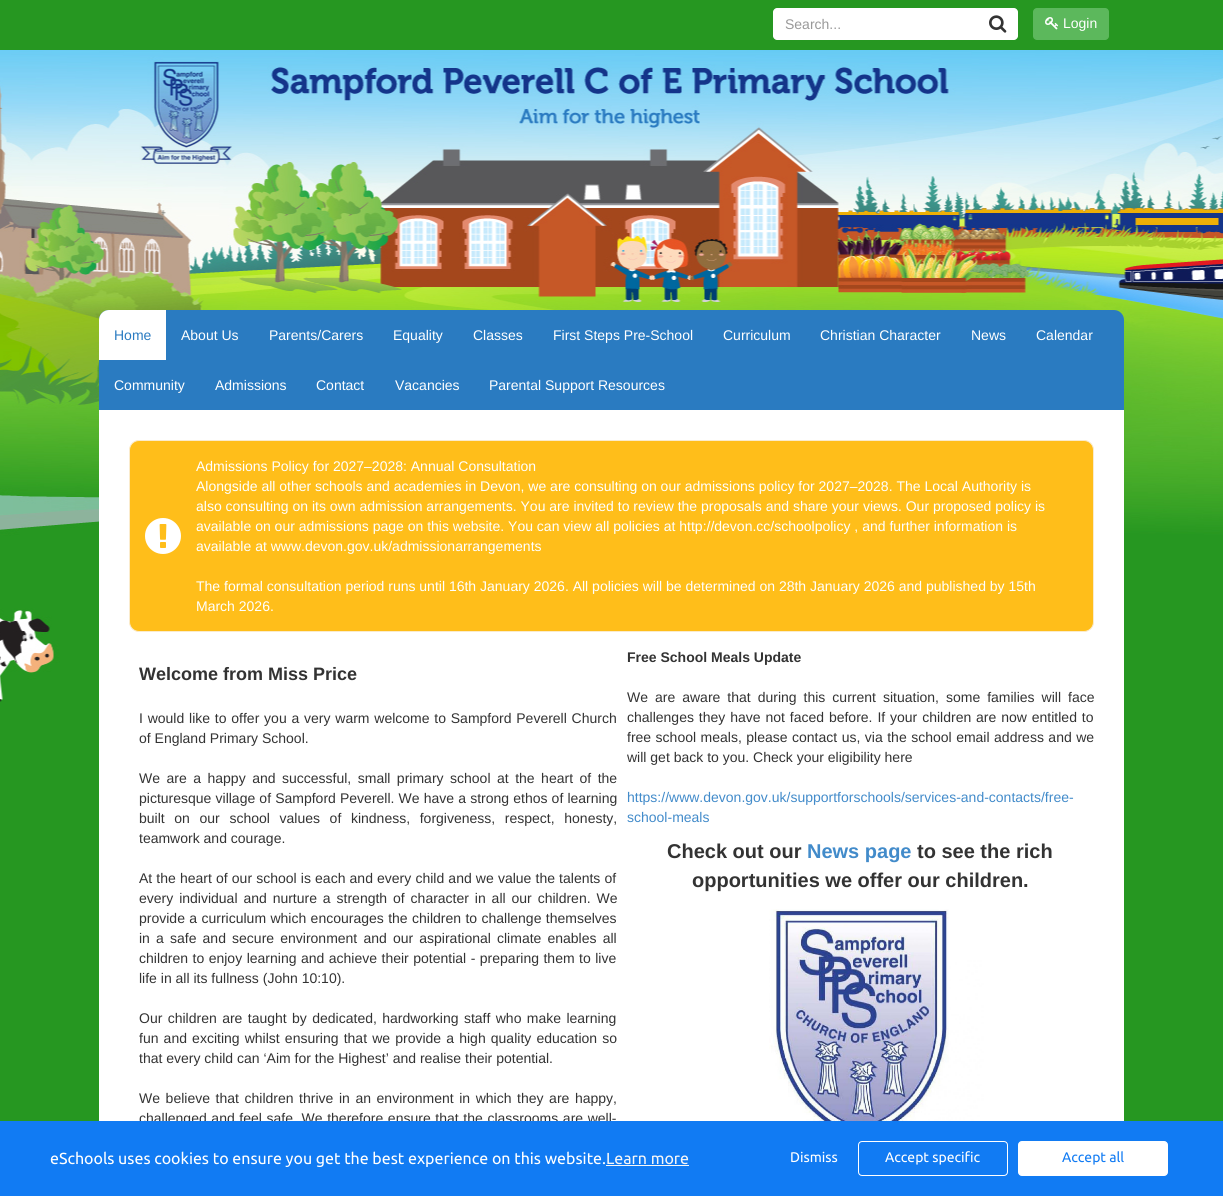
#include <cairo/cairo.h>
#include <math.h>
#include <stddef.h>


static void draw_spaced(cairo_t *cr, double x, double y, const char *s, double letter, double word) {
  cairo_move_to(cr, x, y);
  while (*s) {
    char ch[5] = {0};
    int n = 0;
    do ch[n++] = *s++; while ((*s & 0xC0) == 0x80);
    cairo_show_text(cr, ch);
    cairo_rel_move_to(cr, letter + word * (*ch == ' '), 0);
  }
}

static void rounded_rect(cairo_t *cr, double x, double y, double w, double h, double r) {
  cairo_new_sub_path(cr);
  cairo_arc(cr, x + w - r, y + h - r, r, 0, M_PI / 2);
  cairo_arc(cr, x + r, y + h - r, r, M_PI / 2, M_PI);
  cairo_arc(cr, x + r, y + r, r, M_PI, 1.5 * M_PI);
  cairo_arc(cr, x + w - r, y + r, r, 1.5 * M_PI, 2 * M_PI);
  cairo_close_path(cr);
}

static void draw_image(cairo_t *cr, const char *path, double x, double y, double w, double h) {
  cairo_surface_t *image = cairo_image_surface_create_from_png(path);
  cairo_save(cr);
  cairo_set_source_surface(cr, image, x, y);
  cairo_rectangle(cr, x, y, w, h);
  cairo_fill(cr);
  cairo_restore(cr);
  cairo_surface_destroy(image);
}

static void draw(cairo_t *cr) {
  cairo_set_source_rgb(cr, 38 / 255.0, 151 / 255.0, 33 / 255.0);
  cairo_paint(cr);
  draw_image(cr, "images/1.png", 0, 50, 1223, 652);
  cairo_set_source_rgb(cr, 1, 1, 1);
  cairo_new_path(cr);
  cairo_move_to(cr, 777, 8);
  cairo_line_to(cr, 978, 8);
  cairo_line_to(cr, 978, 40);
  cairo_line_to(cr, 777, 40);
  cairo_curve_to(cr, 775, 40, 773, 38, 773, 36);
  cairo_line_to(cr, 773, 12);
  cairo_curve_to(cr, 773, 10, 775, 8, 777, 8);
  cairo_close_path(cr);
  cairo_fill(cr);
  cairo_new_path(cr);
  cairo_move_to(cr, 977, 8);
  cairo_line_to(cr, 1014, 8);
  cairo_curve_to(cr, 1016, 8, 1018, 10, 1018, 12);
  cairo_line_to(cr, 1018, 36);
  cairo_curve_to(cr, 1018, 38, 1016, 40, 1014, 40);
  cairo_line_to(cr, 977, 40);
  cairo_close_path(cr);
  cairo_fill(cr);
  draw_image(cr, "images/2.png", 989, 15, 18, 18);
  cairo_set_source_rgb(cr, 92 / 255.0, 184 / 255.0, 92 / 255.0);
  rounded_rect(cr, 1033, 8, 76, 32, 4);
  cairo_fill(cr);
  draw_image(cr, "images/3.png", 1045, 17, 14, 13);
  cairo_set_source_rgb(cr, 42 / 255.0, 123 / 255.0, 193 / 255.0);
  cairo_new_path(cr);
  cairo_move_to(cr, 109, 310);
  cairo_line_to(cr, 1114, 310);
  cairo_curve_to(cr, 1119.5, 310, 1124, 314.5, 1124, 320);
  cairo_line_to(cr, 1124, 410);
  cairo_line_to(cr, 99, 410);
  cairo_line_to(cr, 99, 320);
  cairo_curve_to(cr, 99, 314.5, 103.5, 310, 109, 310);
  cairo_close_path(cr);
  cairo_fill(cr);
  cairo_set_source_rgb(cr, 1, 1, 1);
  cairo_new_path(cr);
  cairo_move_to(cr, 109, 310);
  cairo_line_to(cr, 166, 310);
  cairo_line_to(cr, 166, 360);
  cairo_line_to(cr, 99, 360);
  cairo_line_to(cr, 99, 320);
  cairo_curve_to(cr, 99, 314.5, 103.5, 310, 109, 310);
  cairo_close_path(cr);
  cairo_fill(cr);
  cairo_rectangle(cr, 99, 410, 1025, 711);
  cairo_fill(cr);
  cairo_set_source_rgb(cr, 1, 190 / 255.0, 26 / 255.0);
  rounded_rect(cr, 129.5, 440.5, 964, 191, 9.5);
  cairo_fill_preserve(cr);
  cairo_set_source_rgb(cr, 250 / 255.0, 235 / 255.0, 204 / 255.0);
  cairo_set_line_width(cr, 1);
  cairo_stroke(cr);
  draw_image(cr, "images/4.png", 145, 518, 36, 36);
  draw_image(cr, "images/5.png", 737, 909, 247, 212);
  cairo_select_font_face(cr, "Liberation Sans", CAIRO_FONT_SLANT_NORMAL, CAIRO_FONT_WEIGHT_NORMAL);
  cairo_set_font_size(cr, 14);
  cairo_set_source_rgb(cr, 153 / 255.0, 153 / 255.0, 153 / 255.0);
  cairo_move_to(cr, 785, 29);
  cairo_show_text(cr, "Search...");
  cairo_set_source_rgb(cr, 1, 1, 1);
  cairo_move_to(cr, 1063, 28);
  cairo_show_text(cr, "Login");
  cairo_set_source_rgb(cr, 42 / 255.0, 123 / 255.0, 193 / 255.0);
  cairo_move_to(cr, 114, 340);
  cairo_show_text(cr, "Home");
  cairo_set_source_rgb(cr, 1, 1, 1);
  cairo_move_to(cr, 181, 340);
  cairo_show_text(cr, "About Us");
  cairo_move_to(cr, 269, 340);
  cairo_show_text(cr, "Parents/Carers");
  cairo_move_to(cr, 393, 340);
  cairo_show_text(cr, "Equality");
  cairo_move_to(cr, 473, 340);
  cairo_show_text(cr, "Classes");
  cairo_move_to(cr, 553, 340);
  cairo_show_text(cr, "First Steps Pre-School");
  cairo_move_to(cr, 723, 340);
  cairo_show_text(cr, "Curriculum");
  cairo_move_to(cr, 820, 340);
  cairo_show_text(cr, "Christian Character");
  cairo_move_to(cr, 971, 340);
  cairo_show_text(cr, "News");
  cairo_move_to(cr, 1036, 340);
  cairo_show_text(cr, "Calendar");
  cairo_move_to(cr, 114, 390);
  cairo_show_text(cr, "Community");
  cairo_move_to(cr, 215, 390);
  cairo_show_text(cr, "Admissions");
  cairo_move_to(cr, 316, 390);
  cairo_show_text(cr, "Contact");
  cairo_move_to(cr, 395, 390);
  cairo_show_text(cr, "Vacancies");
  cairo_move_to(cr, 489, 390);
  cairo_show_text(cr, "Parental Support Resources");
  cairo_move_to(cr, 196, 471);
  cairo_show_text(cr, "Admissions Policy for 2027–2028: Annual Consultation");
  cairo_move_to(cr, 196, 491);
  cairo_show_text(cr, "Alongside all other schools and academies in Devon, we are consulting on our admissions policy for 2027–2028. The Local Authority is");
  cairo_move_to(cr, 196, 511);
  cairo_show_text(cr, "also consulting on its own admission arrangements. You are invited to review the proposals and share your views. Our proposed policy is");
  cairo_move_to(cr, 196, 531);
  cairo_show_text(cr, "available on our admissions page on this website. You can view all policies at http://devon.cc/schoolpolicy , and further information is");
  cairo_move_to(cr, 196, 551);
  cairo_show_text(cr, "available at www.devon.gov.uk/admissionarrangements");
  cairo_move_to(cr, 196, 591);
  cairo_show_text(cr, "The formal consultation period runs until 16th January 2026. All policies will be determined on 28th January 2026 and published by 15th");
  cairo_move_to(cr, 196, 611);
  cairo_show_text(cr, "March 2026.");
  cairo_select_font_face(cr, "Liberation Sans", CAIRO_FONT_SLANT_NORMAL, CAIRO_FONT_WEIGHT_BOLD);
  cairo_set_font_size(cr, 18);
  cairo_set_source_rgb(cr, 51 / 255.0, 51 / 255.0, 51 / 255.0);
  cairo_move_to(cr, 139, 680);
  cairo_show_text(cr, "Welcome from Miss Price");
  cairo_select_font_face(cr, "Liberation Sans", CAIRO_FONT_SLANT_NORMAL, CAIRO_FONT_WEIGHT_NORMAL);
  cairo_set_font_size(cr, 14);
  draw_spaced(cr, 139, 723, "I would like to offer you a very warm welcome to Sampford Peverell Church", 0, 0.9);
  cairo_move_to(cr, 139, 743);
  cairo_show_text(cr, "of England Primary School.");
  draw_spaced(cr, 139, 783, "We are a happy and successful, small primary school at the heart of the", 0, 2.6);
  draw_spaced(cr, 139, 803, "picturesque village of Sampford Peverell. We have a strong ethos of learning", 0, 0.25);
  draw_spaced(cr, 139, 823, "built on our school values of kindness, forgiveness, respect, honesty,", 0, 5.75);
  cairo_move_to(cr, 139, 843);
  cairo_show_text(cr, "teamwork and courage.");
  draw_spaced(cr, 139, 883, "At the heart of our school is each and every child and we value the talents of", 0, 0.25);
  draw_spaced(cr, 139, 903, "every individual and nurture a strength of character in all our children. We", 0, 2);
  draw_spaced(cr, 139, 923, "provide a curriculum which encourages the children to challenge themselves", 0, 0.5);
  draw_spaced(cr, 139, 943, "in a safe and secure environment and our aspirational climate enables all", 0, 2.25);
  draw_spaced(cr, 139, 963, "children to enjoy learning and achieve their potential - preparing them to live", 0, 0.6);
  cairo_move_to(cr, 139, 983);
  cairo_show_text(cr, "life in all its fullness (John 10:10).");
  draw_spaced(cr, 139, 1023, "Our children are taught by dedicated, hardworking staff who make learning", 0, 1.5);
  draw_spaced(cr, 139, 1043, "fun and exciting whilst ensuring that we provide a high quality education so", 0, 1.25);
  cairo_move_to(cr, 139, 1063);
  cairo_show_text(cr, "that every child can ‘Aim for the Highest’ and realise their potential.");
  draw_spaced(cr, 139, 1103, "We believe that children thrive in an environment in which they are happy,", 0, 1.7);
  draw_spaced(cr, 139, 1123, "challenged and feel safe. We therefore ensure that the classrooms are well-", 0, 0.75);
  cairo_select_font_face(cr, "Liberation Sans", CAIRO_FONT_SLANT_NORMAL, CAIRO_FONT_WEIGHT_BOLD);
  cairo_move_to(cr, 627, 662);
  cairo_show_text(cr, "Free School Meals Update");
  cairo_select_font_face(cr, "Liberation Sans", CAIRO_FONT_SLANT_NORMAL, CAIRO_FONT_WEIGHT_NORMAL);
  draw_spaced(cr, 627, 702, "We are aware that during this current situation, some families will face", 0, 3.1);
  draw_spaced(cr, 627, 722, "challenges they have not faced before. If your children are now entitled to", 0, 1);
  draw_spaced(cr, 627, 742, "free school meals, please contact us, via the school email address and we", 0, 0.6);
  cairo_move_to(cr, 627, 762);
  cairo_show_text(cr, "will get back to you. Check your eligibility here");
  cairo_set_source_rgb(cr, 66 / 255.0, 139 / 255.0, 202 / 255.0);
  cairo_move_to(cr, 627, 802);
  cairo_show_text(cr, "https://www.devon.gov.uk/supportforschools/services-and-contacts/free-");
  cairo_move_to(cr, 627, 822);
  cairo_show_text(cr, "school-meals");
  cairo_select_font_face(cr, "Liberation Sans", CAIRO_FONT_SLANT_NORMAL, CAIRO_FONT_WEIGHT_BOLD);
  cairo_set_font_size(cr, 20);
  cairo_set_source_rgb(cr, 51 / 255.0, 51 / 255.0, 51 / 255.0);
  cairo_move_to(cr, 667, 858);
  cairo_show_text(cr, "Check out our");
  cairo_set_source_rgb(cr, 66 / 255.0, 139 / 255.0, 202 / 255.0);
  cairo_move_to(cr, 807, 858);
  cairo_show_text(cr, "News page");
  cairo_set_source_rgb(cr, 51 / 255.0, 51 / 255.0, 51 / 255.0);
  cairo_move_to(cr, 917, 858);
  cairo_show_text(cr, "to see the rich");
  cairo_move_to(cr, 692, 887);
  cairo_show_text(cr, "opportunities we offer our children.");
  cairo_set_source_rgb(cr, 17 / 255.0, 123 / 255.0, 243 / 255.0);
  cairo_rectangle(cr, 0, 1121, 1223, 75);
  cairo_fill(cr);
  cairo_select_font_face(cr, "Ubuntu", CAIRO_FONT_SLANT_NORMAL, CAIRO_FONT_WEIGHT_NORMAL);
  cairo_set_font_size(cr, 16);
  cairo_set_source_rgb(cr, 1, 1, 1);
  cairo_move_to(cr, 50, 1164);
  cairo_show_text(cr, "eSchools uses cookies to ensure you get the best experience on this website.");
  cairo_set_source_rgb(cr, 247 / 255.0, 247 / 255.0, 247 / 255.0);
  cairo_rectangle(cr, 606, 1165, 83, 1);
  cairo_fill(cr);
  cairo_move_to(cr, 606, 1164);
  cairo_show_text(cr, "Learn more");
  cairo_set_font_size(cr, 14);
  cairo_set_source_rgb(cr, 1, 1, 1);
  cairo_move_to(cr, 790, 1162);
  cairo_show_text(cr, "Dismiss");
  rounded_rect(cr, 858.5, 1141.5, 149, 34, 3.5);
  cairo_stroke(cr);
  cairo_move_to(cr, 885, 1162);
  cairo_show_text(cr, "Accept specific");
  rounded_rect(cr, 1018.5, 1141.5, 149, 34, 3.5);
  cairo_fill_preserve(cr);
  cairo_stroke(cr);
  cairo_set_source_rgb(cr, 17 / 255.0, 123 / 255.0, 243 / 255.0);
  cairo_move_to(cr, 1062, 1162);
  cairo_show_text(cr, "Accept all");
}

int main(void) {
  cairo_surface_t *surface = cairo_image_surface_create(CAIRO_FORMAT_RGB24, 1223, 1196);
  cairo_t *cr = cairo_create(surface);
  cairo_font_options_t *options = cairo_font_options_create();
  cairo_font_options_set_hint_metrics(options, CAIRO_HINT_METRICS_OFF);
  cairo_font_options_set_hint_style(options, CAIRO_HINT_STYLE_NONE);
  cairo_set_font_options(cr, options);
  cairo_set_miter_limit(cr, 4);
  draw(cr);
  cairo_surface_write_to_png(surface, "out.png");
  cairo_font_options_destroy(options);
  cairo_destroy(cr);
  cairo_surface_destroy(surface);
  return 0;
}
